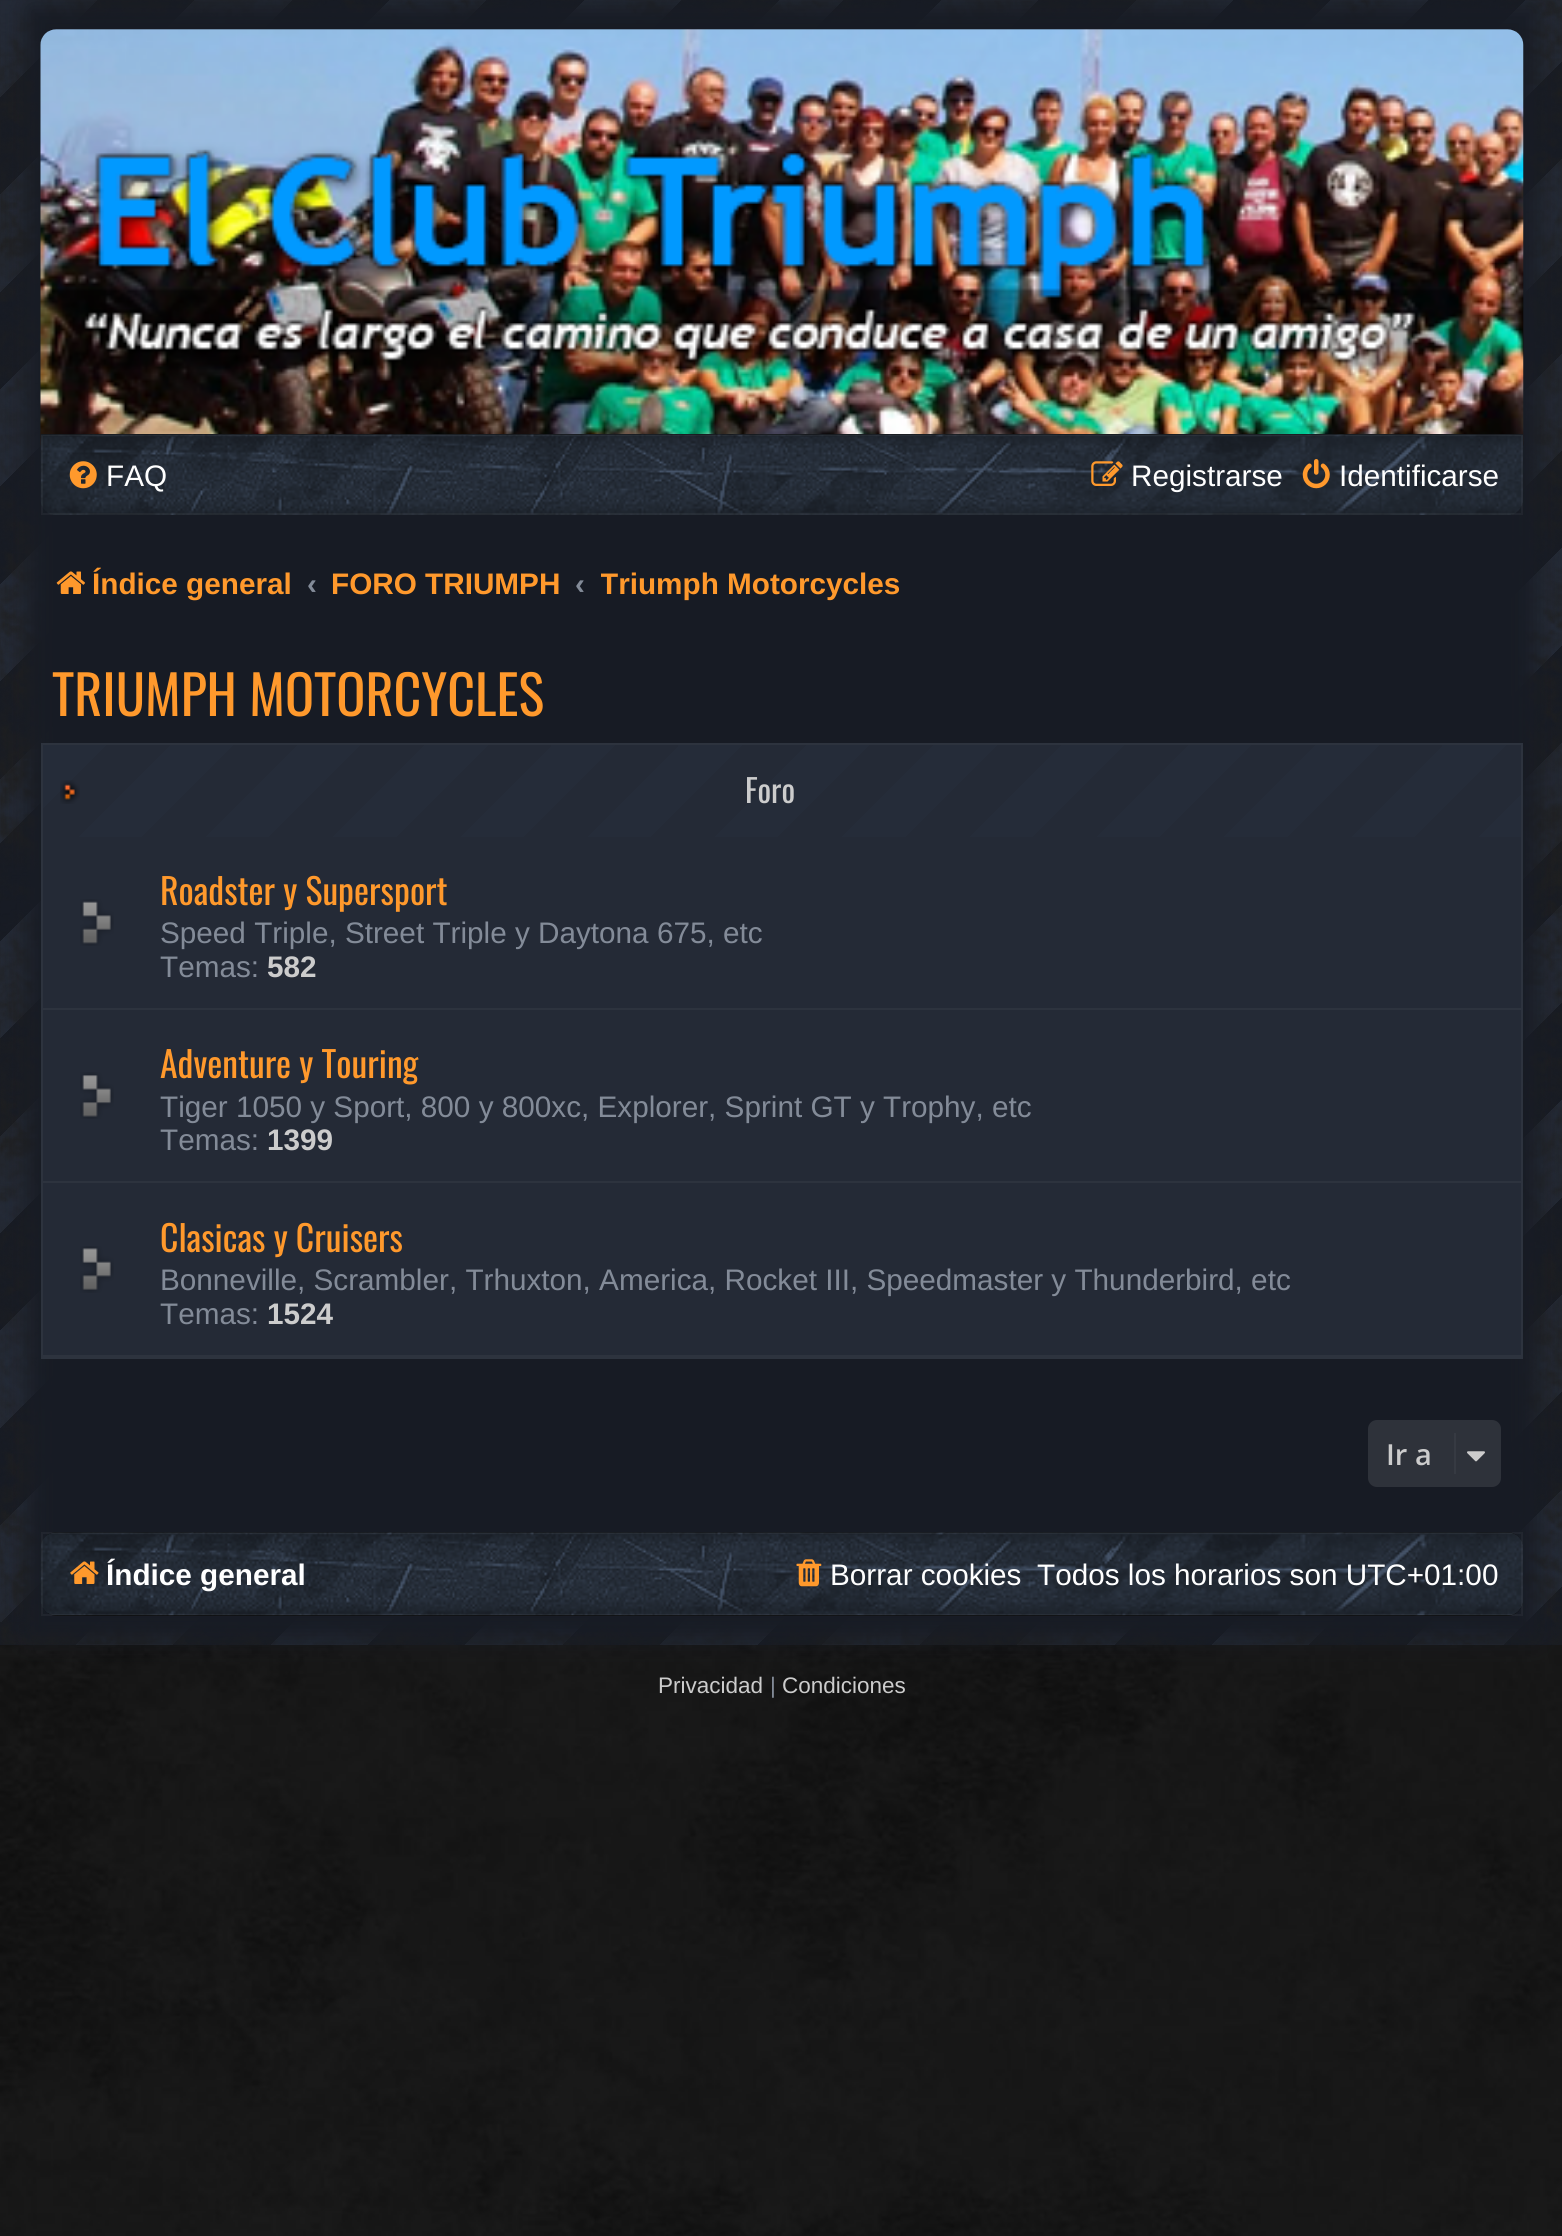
#include <cairo/cairo.h>
#include <math.h>
#include <stddef.h>


static void rounded_rect(cairo_t *cr, double x, double y, double w, double h, double r) {
  cairo_new_sub_path(cr);
  cairo_arc(cr, x + w - r, y + h - r, r, 0, M_PI / 2);
  cairo_arc(cr, x + r, y + h - r, r, M_PI / 2, M_PI);
  cairo_arc(cr, x + r, y + r, r, M_PI, 1.5 * M_PI);
  cairo_arc(cr, x + w - r, y + r, r, 1.5 * M_PI, 2 * M_PI);
  cairo_close_path(cr);
}

static void draw_shadow(cairo_t *cr, double x, double y, double w, double h, double r, double blur, double alpha) {
  cairo_push_group_with_content(cr, CAIRO_CONTENT_ALPHA);
  cairo_set_operator(cr, CAIRO_OPERATOR_SOURCE);
  for (int i = 15; i >= -15 && fmin(w, h) + blur * i / 3 > 0; i -= 2) {
    double e = blur * i / 6;
    cairo_set_source_rgba(cr, 0, 0, 0, alpha * erfc((i - 1) / 8.5) / 2);
    rounded_rect(cr, x - e, y - e, w + 2 * e, h + 2 * e, fmax(0, fmin(r + e + blur * .6, fmin(w, h) / 2 + e)));
    cairo_fill(cr);
  }
  cairo_pattern_t *soft = cairo_pop_group(cr);
  cairo_mask(cr, soft);
  cairo_pattern_destroy(soft);
}

static void draw_image(cairo_t *cr, const char *path, double x, double y, double w, double h) {
  cairo_surface_t *image = cairo_image_surface_create_from_png(path);
  cairo_save(cr);
  cairo_set_source_surface(cr, image, x, y);
  cairo_rectangle(cr, x, y, w, h);
  cairo_fill(cr);
  cairo_restore(cr);
  cairo_surface_destroy(image);
}

static void draw(cairo_t *cr) {
  cairo_pattern_t *gradient;
  cairo_set_source_rgb(cr, 1, 1, 1);
  cairo_paint(cr);
  draw_image(cr, "images/1.png", 0, 1730, 1562, 506);
  draw_image(cr, "images/2.png", 0, 1645, 1562, 85);
  gradient = cairo_pattern_create_linear(-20, 20, 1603, 1643);
  cairo_pattern_add_color_stop_rgba(gradient, 0, 36 / 255.0, 42 / 255.0, 54 / 255.0, 1);
  cairo_pattern_add_color_stop_rgba(gradient, 0.03, 36 / 255.0, 42 / 255.0, 54 / 255.0, 1);
  cairo_pattern_add_color_stop_rgba(gradient, 0.03, 23 / 255.0, 27 / 255.0, 36 / 255.0, 1);
  cairo_pattern_add_color_stop_rgba(gradient, 0.06, 23 / 255.0, 27 / 255.0, 36 / 255.0, 1);
  cairo_pattern_add_color_stop_rgba(gradient, 0.06, 36 / 255.0, 42 / 255.0, 54 / 255.0, 1);
  cairo_pattern_add_color_stop_rgba(gradient, 0.09, 36 / 255.0, 42 / 255.0, 54 / 255.0, 1);
  cairo_pattern_add_color_stop_rgba(gradient, 0.09, 23 / 255.0, 27 / 255.0, 36 / 255.0, 1);
  cairo_pattern_add_color_stop_rgba(gradient, 0.12, 23 / 255.0, 27 / 255.0, 36 / 255.0, 1);
  cairo_pattern_add_color_stop_rgba(gradient, 0.12, 36 / 255.0, 42 / 255.0, 54 / 255.0, 1);
  cairo_pattern_add_color_stop_rgba(gradient, 0.15, 36 / 255.0, 42 / 255.0, 54 / 255.0, 1);
  cairo_pattern_add_color_stop_rgba(gradient, 0.15, 23 / 255.0, 27 / 255.0, 36 / 255.0, 1);
  cairo_pattern_add_color_stop_rgba(gradient, 0.18, 23 / 255.0, 27 / 255.0, 36 / 255.0, 1);
  cairo_pattern_add_color_stop_rgba(gradient, 0.18, 36 / 255.0, 42 / 255.0, 54 / 255.0, 1);
  cairo_pattern_add_color_stop_rgba(gradient, 0.21, 36 / 255.0, 42 / 255.0, 54 / 255.0, 1);
  cairo_pattern_add_color_stop_rgba(gradient, 0.21, 23 / 255.0, 27 / 255.0, 36 / 255.0, 1);
  cairo_pattern_add_color_stop_rgba(gradient, 0.24, 23 / 255.0, 27 / 255.0, 36 / 255.0, 1);
  cairo_pattern_add_color_stop_rgba(gradient, 0.24, 36 / 255.0, 42 / 255.0, 54 / 255.0, 1);
  cairo_pattern_add_color_stop_rgba(gradient, 0.26, 36 / 255.0, 42 / 255.0, 54 / 255.0, 1);
  cairo_pattern_add_color_stop_rgba(gradient, 0.26, 23 / 255.0, 27 / 255.0, 36 / 255.0, 1);
  cairo_pattern_add_color_stop_rgba(gradient, 0.29, 23 / 255.0, 27 / 255.0, 36 / 255.0, 1);
  cairo_pattern_add_color_stop_rgba(gradient, 0.29, 36 / 255.0, 42 / 255.0, 54 / 255.0, 1);
  cairo_pattern_add_color_stop_rgba(gradient, 0.32, 36 / 255.0, 42 / 255.0, 54 / 255.0, 1);
  cairo_pattern_add_color_stop_rgba(gradient, 0.32, 23 / 255.0, 27 / 255.0, 36 / 255.0, 1);
  cairo_pattern_add_color_stop_rgba(gradient, 0.35, 23 / 255.0, 27 / 255.0, 36 / 255.0, 1);
  cairo_pattern_add_color_stop_rgba(gradient, 0.35, 36 / 255.0, 42 / 255.0, 54 / 255.0, 1);
  cairo_pattern_add_color_stop_rgba(gradient, 0.38, 36 / 255.0, 42 / 255.0, 54 / 255.0, 1);
  cairo_pattern_add_color_stop_rgba(gradient, 0.38, 23 / 255.0, 27 / 255.0, 36 / 255.0, 1);
  cairo_pattern_add_color_stop_rgba(gradient, 0.41, 23 / 255.0, 27 / 255.0, 36 / 255.0, 1);
  cairo_pattern_add_color_stop_rgba(gradient, 0.41, 36 / 255.0, 42 / 255.0, 54 / 255.0, 1);
  cairo_pattern_add_color_stop_rgba(gradient, 0.44, 36 / 255.0, 42 / 255.0, 54 / 255.0, 1);
  cairo_pattern_add_color_stop_rgba(gradient, 0.44, 23 / 255.0, 27 / 255.0, 36 / 255.0, 1);
  cairo_pattern_add_color_stop_rgba(gradient, 0.47, 23 / 255.0, 27 / 255.0, 36 / 255.0, 1);
  cairo_pattern_add_color_stop_rgba(gradient, 0.47, 36 / 255.0, 42 / 255.0, 54 / 255.0, 1);
  cairo_pattern_add_color_stop_rgba(gradient, 0.5, 36 / 255.0, 42 / 255.0, 54 / 255.0, 1);
  cairo_pattern_add_color_stop_rgba(gradient, 0.5, 23 / 255.0, 27 / 255.0, 36 / 255.0, 1);
  cairo_pattern_add_color_stop_rgba(gradient, 0.53, 23 / 255.0, 27 / 255.0, 36 / 255.0, 1);
  cairo_pattern_add_color_stop_rgba(gradient, 0.53, 36 / 255.0, 42 / 255.0, 54 / 255.0, 1);
  cairo_pattern_add_color_stop_rgba(gradient, 0.56, 36 / 255.0, 42 / 255.0, 54 / 255.0, 1);
  cairo_pattern_add_color_stop_rgba(gradient, 0.56, 23 / 255.0, 27 / 255.0, 36 / 255.0, 1);
  cairo_pattern_add_color_stop_rgba(gradient, 0.59, 23 / 255.0, 27 / 255.0, 36 / 255.0, 1);
  cairo_pattern_add_color_stop_rgba(gradient, 0.59, 36 / 255.0, 42 / 255.0, 54 / 255.0, 1);
  cairo_pattern_add_color_stop_rgba(gradient, 0.62, 36 / 255.0, 42 / 255.0, 54 / 255.0, 1);
  cairo_pattern_add_color_stop_rgba(gradient, 0.62, 23 / 255.0, 27 / 255.0, 36 / 255.0, 1);
  cairo_pattern_add_color_stop_rgba(gradient, 0.65, 23 / 255.0, 27 / 255.0, 36 / 255.0, 1);
  cairo_pattern_add_color_stop_rgba(gradient, 0.65, 36 / 255.0, 42 / 255.0, 54 / 255.0, 1);
  cairo_pattern_add_color_stop_rgba(gradient, 0.68, 36 / 255.0, 42 / 255.0, 54 / 255.0, 1);
  cairo_pattern_add_color_stop_rgba(gradient, 0.68, 23 / 255.0, 27 / 255.0, 36 / 255.0, 1);
  cairo_pattern_add_color_stop_rgba(gradient, 0.71, 23 / 255.0, 27 / 255.0, 36 / 255.0, 1);
  cairo_pattern_add_color_stop_rgba(gradient, 0.71, 36 / 255.0, 42 / 255.0, 54 / 255.0, 1);
  cairo_pattern_add_color_stop_rgba(gradient, 0.74, 36 / 255.0, 42 / 255.0, 54 / 255.0, 1);
  cairo_pattern_add_color_stop_rgba(gradient, 0.74, 23 / 255.0, 27 / 255.0, 36 / 255.0, 1);
  cairo_pattern_add_color_stop_rgba(gradient, 0.76, 23 / 255.0, 27 / 255.0, 36 / 255.0, 1);
  cairo_pattern_add_color_stop_rgba(gradient, 0.76, 36 / 255.0, 42 / 255.0, 54 / 255.0, 1);
  cairo_pattern_add_color_stop_rgba(gradient, 0.79, 36 / 255.0, 42 / 255.0, 54 / 255.0, 1);
  cairo_pattern_add_color_stop_rgba(gradient, 0.79, 23 / 255.0, 27 / 255.0, 36 / 255.0, 1);
  cairo_pattern_add_color_stop_rgba(gradient, 0.82, 23 / 255.0, 27 / 255.0, 36 / 255.0, 1);
  cairo_pattern_add_color_stop_rgba(gradient, 0.82, 36 / 255.0, 42 / 255.0, 54 / 255.0, 1);
  cairo_pattern_add_color_stop_rgba(gradient, 0.85, 36 / 255.0, 42 / 255.0, 54 / 255.0, 1);
  cairo_pattern_add_color_stop_rgba(gradient, 0.85, 23 / 255.0, 27 / 255.0, 36 / 255.0, 1);
  cairo_pattern_add_color_stop_rgba(gradient, 0.88, 23 / 255.0, 27 / 255.0, 36 / 255.0, 1);
  cairo_pattern_add_color_stop_rgba(gradient, 0.88, 36 / 255.0, 42 / 255.0, 54 / 255.0, 1);
  cairo_pattern_add_color_stop_rgba(gradient, 0.91, 36 / 255.0, 42 / 255.0, 54 / 255.0, 1);
  cairo_pattern_add_color_stop_rgba(gradient, 0.91, 23 / 255.0, 27 / 255.0, 36 / 255.0, 1);
  cairo_pattern_add_color_stop_rgba(gradient, 0.94, 23 / 255.0, 27 / 255.0, 36 / 255.0, 1);
  cairo_pattern_add_color_stop_rgba(gradient, 0.94, 36 / 255.0, 42 / 255.0, 54 / 255.0, 1);
  cairo_pattern_add_color_stop_rgba(gradient, 0.97, 36 / 255.0, 42 / 255.0, 54 / 255.0, 1);
  cairo_pattern_add_color_stop_rgba(gradient, 0.97, 23 / 255.0, 27 / 255.0, 36 / 255.0, 1);
  cairo_pattern_add_color_stop_rgba(gradient, 1, 23 / 255.0, 27 / 255.0, 36 / 255.0, 1);
  cairo_set_source(cr, gradient);
  cairo_pattern_destroy(gradient);
  cairo_rectangle(cr, 0, 0, 1562, 1645);
  cairo_fill(cr);
  draw_image(cr, "images/3.png", 0, 0, 1562, 1645);
  cairo_set_source_rgb(cr, 23 / 255.0, 27 / 255.0, 36 / 255.0);
  draw_shadow(cr, 29, 7, 1506, 1631, 0, 11, 1);
  cairo_set_source_rgb(cr, 0, 0, 0);
  cairo_new_path(cr);
  cairo_move_to(cr, 57, 29);
  cairo_line_to(cr, 1507, 29);
  cairo_curve_to(cr, 1516, 29, 1523, 36, 1523, 45);
  cairo_line_to(cr, 1523, 446);
  cairo_line_to(cr, 41, 446);
  cairo_line_to(cr, 41, 45);
  cairo_curve_to(cr, 41, 36, 48, 29, 57, 29);
  cairo_close_path(cr);
  cairo_fill(cr);
  draw_image(cr, "images/4.png", 40, 29, 1484, 417);
  cairo_new_path(cr);
  cairo_move_to(cr, 41, 434);
  cairo_line_to(cr, 1523, 434);
  cairo_line_to(cr, 1523, 499);
  cairo_curve_to(cr, 1523, 508, 1516, 515, 1507, 515);
  cairo_line_to(cr, 57, 515);
  cairo_curve_to(cr, 48, 515, 41, 508, 41, 499);
  cairo_close_path(cr);
  cairo_fill(cr);
  draw_image(cr, "images/5.png", 40, 434, 1483, 81);
  cairo_rectangle(cr, 42, 435, 1480, 79);
  cairo_set_source_rgba(cr, 1, 1, 1, 0.04);
  cairo_stroke(cr);
  draw_image(cr, "images/6.png", 69, 461, 28, 28);
  draw_image(cr, "images/7.png", 1091, 461, 32, 25);
  draw_image(cr, "images/8.png", 1302, 459, 28, 30);
  draw_image(cr, "images/9.png", 56, 571, 29, 23);
  cairo_set_source_rgb(cr, 36 / 255.0, 42 / 255.0, 54 / 255.0);
  cairo_rectangle(cr, 43, 837, 1478, 518);
  cairo_fill(cr);
  cairo_rectangle(cr, 42, 744, 1480, 614);
  cairo_set_source_rgb(cr, 45 / 255.0, 51 / 255.0, 62 / 255.0);
  cairo_stroke(cr);
  gradient = cairo_pattern_create_linear(43, 745, 170, 872);
  cairo_pattern_add_color_stop_rgba(gradient, 0.25, 37 / 255.0, 44 / 255.0, 57 / 255.0, 1);
  cairo_pattern_add_color_stop_rgba(gradient, 0.25, 36 / 255.0, 42 / 255.0, 54 / 255.0, 1);
  cairo_pattern_add_color_stop_rgba(gradient, 0.5, 36 / 255.0, 42 / 255.0, 54 / 255.0, 1);
  cairo_pattern_add_color_stop_rgba(gradient, 0.5, 37 / 255.0, 44 / 255.0, 57 / 255.0, 1);
  cairo_pattern_add_color_stop_rgba(gradient, 0.75, 37 / 255.0, 44 / 255.0, 57 / 255.0, 1);
  cairo_pattern_add_color_stop_rgba(gradient, 0.75, 36 / 255.0, 42 / 255.0, 54 / 255.0, 1);
  cairo_pattern_add_color_stop_rgba(gradient, 1, 36 / 255.0, 42 / 255.0, 54 / 255.0, 1);
  cairo_set_source(cr, gradient);
  cairo_pattern_destroy(gradient);
  cairo_rectangle(cr, 43, 745, 128, 92);
  cairo_fill(cr);
  gradient = cairo_pattern_create_linear(170, 745, 297, 872);
  cairo_pattern_add_color_stop_rgba(gradient, 0.25, 37 / 255.0, 44 / 255.0, 57 / 255.0, 1);
  cairo_pattern_add_color_stop_rgba(gradient, 0.25, 36 / 255.0, 42 / 255.0, 54 / 255.0, 1);
  cairo_pattern_add_color_stop_rgba(gradient, 0.5, 36 / 255.0, 42 / 255.0, 54 / 255.0, 1);
  cairo_pattern_add_color_stop_rgba(gradient, 0.5, 37 / 255.0, 44 / 255.0, 57 / 255.0, 1);
  cairo_pattern_add_color_stop_rgba(gradient, 0.75, 37 / 255.0, 44 / 255.0, 57 / 255.0, 1);
  cairo_pattern_add_color_stop_rgba(gradient, 0.75, 36 / 255.0, 42 / 255.0, 54 / 255.0, 1);
  cairo_pattern_add_color_stop_rgba(gradient, 1, 36 / 255.0, 42 / 255.0, 54 / 255.0, 1);
  cairo_set_source(cr, gradient);
  cairo_pattern_destroy(gradient);
  cairo_rectangle(cr, 171, 745, 126, 92);
  cairo_fill(cr);
  gradient = cairo_pattern_create_linear(297, 745, 425, 872);
  cairo_pattern_add_color_stop_rgba(gradient, 0.25, 37 / 255.0, 44 / 255.0, 57 / 255.0, 1);
  cairo_pattern_add_color_stop_rgba(gradient, 0.25, 36 / 255.0, 42 / 255.0, 54 / 255.0, 1);
  cairo_pattern_add_color_stop_rgba(gradient, 0.5, 36 / 255.0, 42 / 255.0, 54 / 255.0, 1);
  cairo_pattern_add_color_stop_rgba(gradient, 0.5, 37 / 255.0, 44 / 255.0, 57 / 255.0, 1);
  cairo_pattern_add_color_stop_rgba(gradient, 0.75, 37 / 255.0, 44 / 255.0, 57 / 255.0, 1);
  cairo_pattern_add_color_stop_rgba(gradient, 0.75, 36 / 255.0, 42 / 255.0, 54 / 255.0, 1);
  cairo_pattern_add_color_stop_rgba(gradient, 1, 36 / 255.0, 42 / 255.0, 54 / 255.0, 1);
  cairo_set_source(cr, gradient);
  cairo_pattern_destroy(gradient);
  cairo_rectangle(cr, 297, 745, 128, 92);
  cairo_fill(cr);
  gradient = cairo_pattern_create_linear(425, 745, 552, 872);
  cairo_pattern_add_color_stop_rgba(gradient, 0.25, 37 / 255.0, 44 / 255.0, 57 / 255.0, 1);
  cairo_pattern_add_color_stop_rgba(gradient, 0.25, 36 / 255.0, 42 / 255.0, 54 / 255.0, 1);
  cairo_pattern_add_color_stop_rgba(gradient, 0.5, 36 / 255.0, 42 / 255.0, 54 / 255.0, 1);
  cairo_pattern_add_color_stop_rgba(gradient, 0.5, 37 / 255.0, 44 / 255.0, 57 / 255.0, 1);
  cairo_pattern_add_color_stop_rgba(gradient, 0.75, 37 / 255.0, 44 / 255.0, 57 / 255.0, 1);
  cairo_pattern_add_color_stop_rgba(gradient, 0.75, 36 / 255.0, 42 / 255.0, 54 / 255.0, 1);
  cairo_pattern_add_color_stop_rgba(gradient, 1, 36 / 255.0, 42 / 255.0, 54 / 255.0, 1);
  cairo_set_source(cr, gradient);
  cairo_pattern_destroy(gradient);
  cairo_rectangle(cr, 425, 745, 126, 92);
  cairo_fill(cr);
  gradient = cairo_pattern_create_linear(552, 745, 679, 872);
  cairo_pattern_add_color_stop_rgba(gradient, 0.25, 37 / 255.0, 44 / 255.0, 57 / 255.0, 1);
  cairo_pattern_add_color_stop_rgba(gradient, 0.25, 36 / 255.0, 42 / 255.0, 54 / 255.0, 1);
  cairo_pattern_add_color_stop_rgba(gradient, 0.5, 36 / 255.0, 42 / 255.0, 54 / 255.0, 1);
  cairo_pattern_add_color_stop_rgba(gradient, 0.5, 37 / 255.0, 44 / 255.0, 57 / 255.0, 1);
  cairo_pattern_add_color_stop_rgba(gradient, 0.75, 37 / 255.0, 44 / 255.0, 57 / 255.0, 1);
  cairo_pattern_add_color_stop_rgba(gradient, 0.75, 36 / 255.0, 42 / 255.0, 54 / 255.0, 1);
  cairo_pattern_add_color_stop_rgba(gradient, 1, 36 / 255.0, 42 / 255.0, 54 / 255.0, 1);
  cairo_set_source(cr, gradient);
  cairo_pattern_destroy(gradient);
  cairo_rectangle(cr, 551, 745, 129, 92);
  cairo_fill(cr);
  gradient = cairo_pattern_create_linear(679, 745, 806, 872);
  cairo_pattern_add_color_stop_rgba(gradient, 0.25, 37 / 255.0, 44 / 255.0, 57 / 255.0, 1);
  cairo_pattern_add_color_stop_rgba(gradient, 0.25, 36 / 255.0, 42 / 255.0, 54 / 255.0, 1);
  cairo_pattern_add_color_stop_rgba(gradient, 0.5, 36 / 255.0, 42 / 255.0, 54 / 255.0, 1);
  cairo_pattern_add_color_stop_rgba(gradient, 0.5, 37 / 255.0, 44 / 255.0, 57 / 255.0, 1);
  cairo_pattern_add_color_stop_rgba(gradient, 0.75, 37 / 255.0, 44 / 255.0, 57 / 255.0, 1);
  cairo_pattern_add_color_stop_rgba(gradient, 0.75, 36 / 255.0, 42 / 255.0, 54 / 255.0, 1);
  cairo_pattern_add_color_stop_rgba(gradient, 1, 36 / 255.0, 42 / 255.0, 54 / 255.0, 1);
  cairo_set_source(cr, gradient);
  cairo_pattern_destroy(gradient);
  cairo_rectangle(cr, 680, 745, 126, 92);
  cairo_fill(cr);
  gradient = cairo_pattern_create_linear(806, 745, 934, 872);
  cairo_pattern_add_color_stop_rgba(gradient, 0.25, 37 / 255.0, 44 / 255.0, 57 / 255.0, 1);
  cairo_pattern_add_color_stop_rgba(gradient, 0.25, 36 / 255.0, 42 / 255.0, 54 / 255.0, 1);
  cairo_pattern_add_color_stop_rgba(gradient, 0.5, 36 / 255.0, 42 / 255.0, 54 / 255.0, 1);
  cairo_pattern_add_color_stop_rgba(gradient, 0.5, 37 / 255.0, 44 / 255.0, 57 / 255.0, 1);
  cairo_pattern_add_color_stop_rgba(gradient, 0.75, 37 / 255.0, 44 / 255.0, 57 / 255.0, 1);
  cairo_pattern_add_color_stop_rgba(gradient, 0.75, 36 / 255.0, 42 / 255.0, 54 / 255.0, 1);
  cairo_pattern_add_color_stop_rgba(gradient, 1, 36 / 255.0, 42 / 255.0, 54 / 255.0, 1);
  cairo_set_source(cr, gradient);
  cairo_pattern_destroy(gradient);
  cairo_rectangle(cr, 806, 745, 128, 92);
  cairo_fill(cr);
  gradient = cairo_pattern_create_linear(934, 745, 1061, 872);
  cairo_pattern_add_color_stop_rgba(gradient, 0.25, 37 / 255.0, 44 / 255.0, 57 / 255.0, 1);
  cairo_pattern_add_color_stop_rgba(gradient, 0.25, 36 / 255.0, 42 / 255.0, 54 / 255.0, 1);
  cairo_pattern_add_color_stop_rgba(gradient, 0.5, 36 / 255.0, 42 / 255.0, 54 / 255.0, 1);
  cairo_pattern_add_color_stop_rgba(gradient, 0.5, 37 / 255.0, 44 / 255.0, 57 / 255.0, 1);
  cairo_pattern_add_color_stop_rgba(gradient, 0.75, 37 / 255.0, 44 / 255.0, 57 / 255.0, 1);
  cairo_pattern_add_color_stop_rgba(gradient, 0.75, 36 / 255.0, 42 / 255.0, 54 / 255.0, 1);
  cairo_pattern_add_color_stop_rgba(gradient, 1, 36 / 255.0, 42 / 255.0, 54 / 255.0, 1);
  cairo_set_source(cr, gradient);
  cairo_pattern_destroy(gradient);
  cairo_rectangle(cr, 934, 745, 128, 92);
  cairo_fill(cr);
  gradient = cairo_pattern_create_linear(1061, 745, 1188, 872);
  cairo_pattern_add_color_stop_rgba(gradient, 0.25, 37 / 255.0, 44 / 255.0, 57 / 255.0, 1);
  cairo_pattern_add_color_stop_rgba(gradient, 0.25, 36 / 255.0, 42 / 255.0, 54 / 255.0, 1);
  cairo_pattern_add_color_stop_rgba(gradient, 0.5, 36 / 255.0, 42 / 255.0, 54 / 255.0, 1);
  cairo_pattern_add_color_stop_rgba(gradient, 0.5, 37 / 255.0, 44 / 255.0, 57 / 255.0, 1);
  cairo_pattern_add_color_stop_rgba(gradient, 0.75, 37 / 255.0, 44 / 255.0, 57 / 255.0, 1);
  cairo_pattern_add_color_stop_rgba(gradient, 0.75, 36 / 255.0, 42 / 255.0, 54 / 255.0, 1);
  cairo_pattern_add_color_stop_rgba(gradient, 1, 36 / 255.0, 42 / 255.0, 54 / 255.0, 1);
  cairo_set_source(cr, gradient);
  cairo_pattern_destroy(gradient);
  cairo_rectangle(cr, 1062, 745, 126, 92);
  cairo_fill(cr);
  gradient = cairo_pattern_create_linear(1188, 745, 1316, 872);
  cairo_pattern_add_color_stop_rgba(gradient, 0.25, 37 / 255.0, 44 / 255.0, 57 / 255.0, 1);
  cairo_pattern_add_color_stop_rgba(gradient, 0.25, 36 / 255.0, 42 / 255.0, 54 / 255.0, 1);
  cairo_pattern_add_color_stop_rgba(gradient, 0.5, 36 / 255.0, 42 / 255.0, 54 / 255.0, 1);
  cairo_pattern_add_color_stop_rgba(gradient, 0.5, 37 / 255.0, 44 / 255.0, 57 / 255.0, 1);
  cairo_pattern_add_color_stop_rgba(gradient, 0.75, 37 / 255.0, 44 / 255.0, 57 / 255.0, 1);
  cairo_pattern_add_color_stop_rgba(gradient, 0.75, 36 / 255.0, 42 / 255.0, 54 / 255.0, 1);
  cairo_pattern_add_color_stop_rgba(gradient, 1, 36 / 255.0, 42 / 255.0, 54 / 255.0, 1);
  cairo_set_source(cr, gradient);
  cairo_pattern_destroy(gradient);
  cairo_rectangle(cr, 1188, 745, 128, 92);
  cairo_fill(cr);
  gradient = cairo_pattern_create_linear(1316, 745, 1443, 872);
  cairo_pattern_add_color_stop_rgba(gradient, 0.25, 37 / 255.0, 44 / 255.0, 57 / 255.0, 1);
  cairo_pattern_add_color_stop_rgba(gradient, 0.25, 36 / 255.0, 42 / 255.0, 54 / 255.0, 1);
  cairo_pattern_add_color_stop_rgba(gradient, 0.5, 36 / 255.0, 42 / 255.0, 54 / 255.0, 1);
  cairo_pattern_add_color_stop_rgba(gradient, 0.5, 37 / 255.0, 44 / 255.0, 57 / 255.0, 1);
  cairo_pattern_add_color_stop_rgba(gradient, 0.75, 37 / 255.0, 44 / 255.0, 57 / 255.0, 1);
  cairo_pattern_add_color_stop_rgba(gradient, 0.75, 36 / 255.0, 42 / 255.0, 54 / 255.0, 1);
  cairo_pattern_add_color_stop_rgba(gradient, 1, 36 / 255.0, 42 / 255.0, 54 / 255.0, 1);
  cairo_set_source(cr, gradient);
  cairo_pattern_destroy(gradient);
  cairo_rectangle(cr, 1316, 745, 126, 92);
  cairo_fill(cr);
  gradient = cairo_pattern_create_linear(1443, 745, 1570, 872);
  cairo_pattern_add_color_stop_rgba(gradient, 0.25, 37 / 255.0, 44 / 255.0, 57 / 255.0, 1);
  cairo_pattern_add_color_stop_rgba(gradient, 0.25, 36 / 255.0, 42 / 255.0, 54 / 255.0, 1);
  cairo_pattern_add_color_stop_rgba(gradient, 0.5, 36 / 255.0, 42 / 255.0, 54 / 255.0, 1);
  cairo_pattern_add_color_stop_rgba(gradient, 0.5, 37 / 255.0, 44 / 255.0, 57 / 255.0, 1);
  cairo_pattern_add_color_stop_rgba(gradient, 0.75, 37 / 255.0, 44 / 255.0, 57 / 255.0, 1);
  cairo_pattern_add_color_stop_rgba(gradient, 0.75, 36 / 255.0, 42 / 255.0, 54 / 255.0, 1);
  cairo_pattern_add_color_stop_rgba(gradient, 1, 36 / 255.0, 42 / 255.0, 54 / 255.0, 1);
  cairo_set_source(cr, gradient);
  cairo_pattern_destroy(gradient);
  cairo_rectangle(cr, 1442, 745, 79, 92);
  cairo_fill(cr);
  draw_image(cr, "images/10.png", 60, 780, 20, 24);
  cairo_set_source_rgb(cr, 45 / 255.0, 51 / 255.0, 62 / 255.0);
  cairo_rectangle(cr, 43, 1008, 1478, 2);
  cairo_fill(cr);
  draw_image(cr, "images/11.png", 80, 899, 34, 47);
  cairo_rectangle(cr, 43, 1181, 1478, 2);
  cairo_fill(cr);
  draw_image(cr, "images/12.png", 80, 1072, 34, 47);
  cairo_rectangle(cr, 43, 1355, 1478, 2);
  cairo_fill(cr);
  draw_image(cr, "images/13.png", 80, 1246, 34, 47);
  cairo_set_source_rgb(cr, 46 / 255.0, 50 / 255.0, 58 / 255.0);
  rounded_rect(cr, 1368, 1420, 133, 67, 9);
  cairo_fill(cr);
  cairo_set_source_rgb(cr, 54 / 255.0, 58 / 255.0, 66 / 255.0);
  cairo_rectangle(cr, 1454, 1433, 2, 41);
  cairo_fill(cr);
  draw_image(cr, "images/14.png", 1467, 1451, 18, 11);
  cairo_set_source_rgb(cr, 0, 0, 0);
  rounded_rect(cr, 41, 1532, 1482, 84, 16);
  cairo_fill(cr);
  draw_image(cr, "images/15.png", 40, 1532, 1483, 84);
  cairo_rectangle(cr, 42, 1533, 1480, 82);
  cairo_set_source_rgba(cr, 1, 1, 1, 0.04);
  cairo_stroke(cr);
  draw_image(cr, "images/16.png", 70, 1561, 29, 23);
  draw_image(cr, "images/17.png", 796, 1559, 26, 28);
  cairo_select_font_face(cr, "Liberation Sans", CAIRO_FONT_SLANT_NORMAL, CAIRO_FONT_WEIGHT_NORMAL);
  cairo_set_font_size(cr, 29.7);
  cairo_set_source_rgb(cr, 1, 1, 1);
  cairo_move_to(cr, 106, 486);
  cairo_show_text(cr, "FAQ");
  cairo_move_to(cr, 1131, 486);
  cairo_show_text(cr, "Registrarse");
  cairo_move_to(cr, 1339, 486);
  cairo_show_text(cr, "Identificarse");
  cairo_select_font_face(cr, "Liberation Sans", CAIRO_FONT_SLANT_NORMAL, CAIRO_FONT_WEIGHT_BOLD);
  cairo_set_source_rgb(cr, 1, 153 / 255.0, 44 / 255.0);
  cairo_move_to(cr, 92, 594);
  cairo_show_text(cr, "Índice general");
  cairo_set_source_rgb(cr, 131 / 255.0, 139 / 255.0, 152 / 255.0);
  cairo_move_to(cr, 307, 594);
  cairo_show_text(cr, "‹");
  cairo_set_source_rgb(cr, 1, 153 / 255.0, 44 / 255.0);
  cairo_move_to(cr, 331, 594);
  cairo_show_text(cr, "FORO TRIUMPH");
  cairo_set_source_rgb(cr, 131 / 255.0, 139 / 255.0, 152 / 255.0);
  cairo_move_to(cr, 575, 594);
  cairo_show_text(cr, "‹");
  cairo_save(cr);
  cairo_rectangle(cr, 601, 551, 299, 66);
  cairo_clip(cr);
  cairo_set_source_rgb(cr, 1, 153 / 255.0, 44 / 255.0);
  cairo_move_to(cr, 600, 594);
  cairo_show_text(cr, "Triumph Motorcycles");
  cairo_restore(cr);
  cairo_select_font_face(cr, "Oswald", CAIRO_FONT_SLANT_NORMAL, CAIRO_FONT_WEIGHT_NORMAL);
  cairo_set_font_size(cr, 54);
  cairo_set_source_rgb(cr, 1, 153 / 255.0, 44 / 255.0);
  cairo_move_to(cr, 52, 716);
  cairo_show_text(cr, "TRIUMPH MOTORCYCLES");
  cairo_set_font_size(cr, 32);
  cairo_set_source_rgb(cr, 204 / 255.0, 204 / 255.0, 204 / 255.0);
  cairo_move_to(cr, 745, 803);
  cairo_show_text(cr, "Foro");
  cairo_set_font_size(cr, 35.75);
  cairo_set_source_rgb(cr, 1, 153 / 255.0, 44 / 255.0);
  cairo_move_to(cr, 160, 905);
  cairo_show_text(cr, "Roadster y Supersport");
  cairo_select_font_face(cr, "Liberation Sans", CAIRO_FONT_SLANT_NORMAL, CAIRO_FONT_WEIGHT_NORMAL);
  cairo_set_font_size(cr, 29.7);
  cairo_set_source_rgb(cr, 131 / 255.0, 139 / 255.0, 152 / 255.0);
  cairo_move_to(cr, 160, 943);
  cairo_show_text(cr, "Speed Triple, Street Triple y Daytona 675, etc");
  cairo_move_to(cr, 160, 977);
  cairo_show_text(cr, "Temas:");
  cairo_select_font_face(cr, "Liberation Sans", CAIRO_FONT_SLANT_NORMAL, CAIRO_FONT_WEIGHT_BOLD);
  cairo_set_source_rgb(cr, 204 / 255.0, 204 / 255.0, 204 / 255.0);
  cairo_move_to(cr, 267, 977);
  cairo_show_text(cr, "582");
  cairo_select_font_face(cr, "Oswald", CAIRO_FONT_SLANT_NORMAL, CAIRO_FONT_WEIGHT_NORMAL);
  cairo_set_font_size(cr, 35.75);
  cairo_set_source_rgb(cr, 1, 153 / 255.0, 44 / 255.0);
  cairo_move_to(cr, 160, 1078);
  cairo_show_text(cr, "Adventure y Touring");
  cairo_select_font_face(cr, "Liberation Sans", CAIRO_FONT_SLANT_NORMAL, CAIRO_FONT_WEIGHT_NORMAL);
  cairo_set_font_size(cr, 29.7);
  cairo_set_source_rgb(cr, 131 / 255.0, 139 / 255.0, 152 / 255.0);
  cairo_move_to(cr, 160, 1117);
  cairo_show_text(cr, "Tiger 1050 y Sport, 800 y 800xc, Explorer, Sprint GT y Trophy, etc");
  cairo_move_to(cr, 160, 1150);
  cairo_show_text(cr, "Temas:");
  cairo_select_font_face(cr, "Liberation Sans", CAIRO_FONT_SLANT_NORMAL, CAIRO_FONT_WEIGHT_BOLD);
  cairo_set_source_rgb(cr, 204 / 255.0, 204 / 255.0, 204 / 255.0);
  cairo_move_to(cr, 267, 1150);
  cairo_show_text(cr, "1399");
  cairo_select_font_face(cr, "Oswald", CAIRO_FONT_SLANT_NORMAL, CAIRO_FONT_WEIGHT_NORMAL);
  cairo_set_font_size(cr, 35.75);
  cairo_set_source_rgb(cr, 1, 153 / 255.0, 44 / 255.0);
  cairo_move_to(cr, 160, 1252);
  cairo_show_text(cr, "Clasicas y Cruisers");
  cairo_select_font_face(cr, "Liberation Sans", CAIRO_FONT_SLANT_NORMAL, CAIRO_FONT_WEIGHT_NORMAL);
  cairo_set_font_size(cr, 29.7);
  cairo_set_source_rgb(cr, 131 / 255.0, 139 / 255.0, 152 / 255.0);
  cairo_move_to(cr, 160, 1290);
  cairo_show_text(cr, "Bonneville, Scrambler, Trhuxton, America, Rocket III, Speedmaster y Thunderbird, etc");
  cairo_move_to(cr, 160, 1324);
  cairo_show_text(cr, "Temas:");
  cairo_select_font_face(cr, "Liberation Sans", CAIRO_FONT_SLANT_NORMAL, CAIRO_FONT_WEIGHT_BOLD);
  cairo_set_source_rgb(cr, 204 / 255.0, 204 / 255.0, 204 / 255.0);
  cairo_move_to(cr, 267, 1324);
  cairo_show_text(cr, "1524");
  cairo_select_font_face(cr, "Open Sans SemiBold", CAIRO_FONT_SLANT_NORMAL, CAIRO_FONT_WEIGHT_NORMAL);
  cairo_set_font_size(cr, 29);
  cairo_move_to(cr, 1386, 1465);
  cairo_show_text(cr, "Ir a");
  cairo_select_font_face(cr, "Liberation Sans", CAIRO_FONT_SLANT_NORMAL, CAIRO_FONT_WEIGHT_BOLD);
  cairo_set_font_size(cr, 29.7);
  cairo_set_source_rgb(cr, 1, 1, 1);
  cairo_move_to(cr, 106, 1585);
  cairo_show_text(cr, "Índice general");
  cairo_select_font_face(cr, "Liberation Sans", CAIRO_FONT_SLANT_NORMAL, CAIRO_FONT_WEIGHT_NORMAL);
  cairo_move_to(cr, 830, 1585);
  cairo_show_text(cr, "Borrar cookies");
  cairo_move_to(cr, 1037, 1585);
  cairo_show_text(cr, "Todos los horarios son UTC+01:00");
  cairo_set_font_size(cr, 22.5);
  cairo_set_source_rgb(cr, 204 / 255.0, 204 / 255.0, 204 / 255.0);
  cairo_move_to(cr, 658, 1693);
  cairo_show_text(cr, "Privacidad");
  cairo_set_source_rgb(cr, 131 / 255.0, 139 / 255.0, 152 / 255.0);
  cairo_move_to(cr, 770, 1693);
  cairo_show_text(cr, "|");
  cairo_set_source_rgb(cr, 204 / 255.0, 204 / 255.0, 204 / 255.0);
  cairo_move_to(cr, 782, 1693);
  cairo_show_text(cr, "Condiciones");
}

int main(void) {
  cairo_surface_t *surface = cairo_image_surface_create(CAIRO_FORMAT_RGB24, 1562, 2236);
  cairo_t *cr = cairo_create(surface);
  cairo_font_options_t *options = cairo_font_options_create();
  cairo_font_options_set_hint_metrics(options, CAIRO_HINT_METRICS_OFF);
  cairo_font_options_set_hint_style(options, CAIRO_HINT_STYLE_NONE);
  cairo_set_font_options(cr, options);
  cairo_set_miter_limit(cr, 4);
  draw(cr);
  cairo_surface_write_to_png(surface, "out.png");
  cairo_font_options_destroy(options);
  cairo_destroy(cr);
  cairo_surface_destroy(surface);
  return 0;
}
